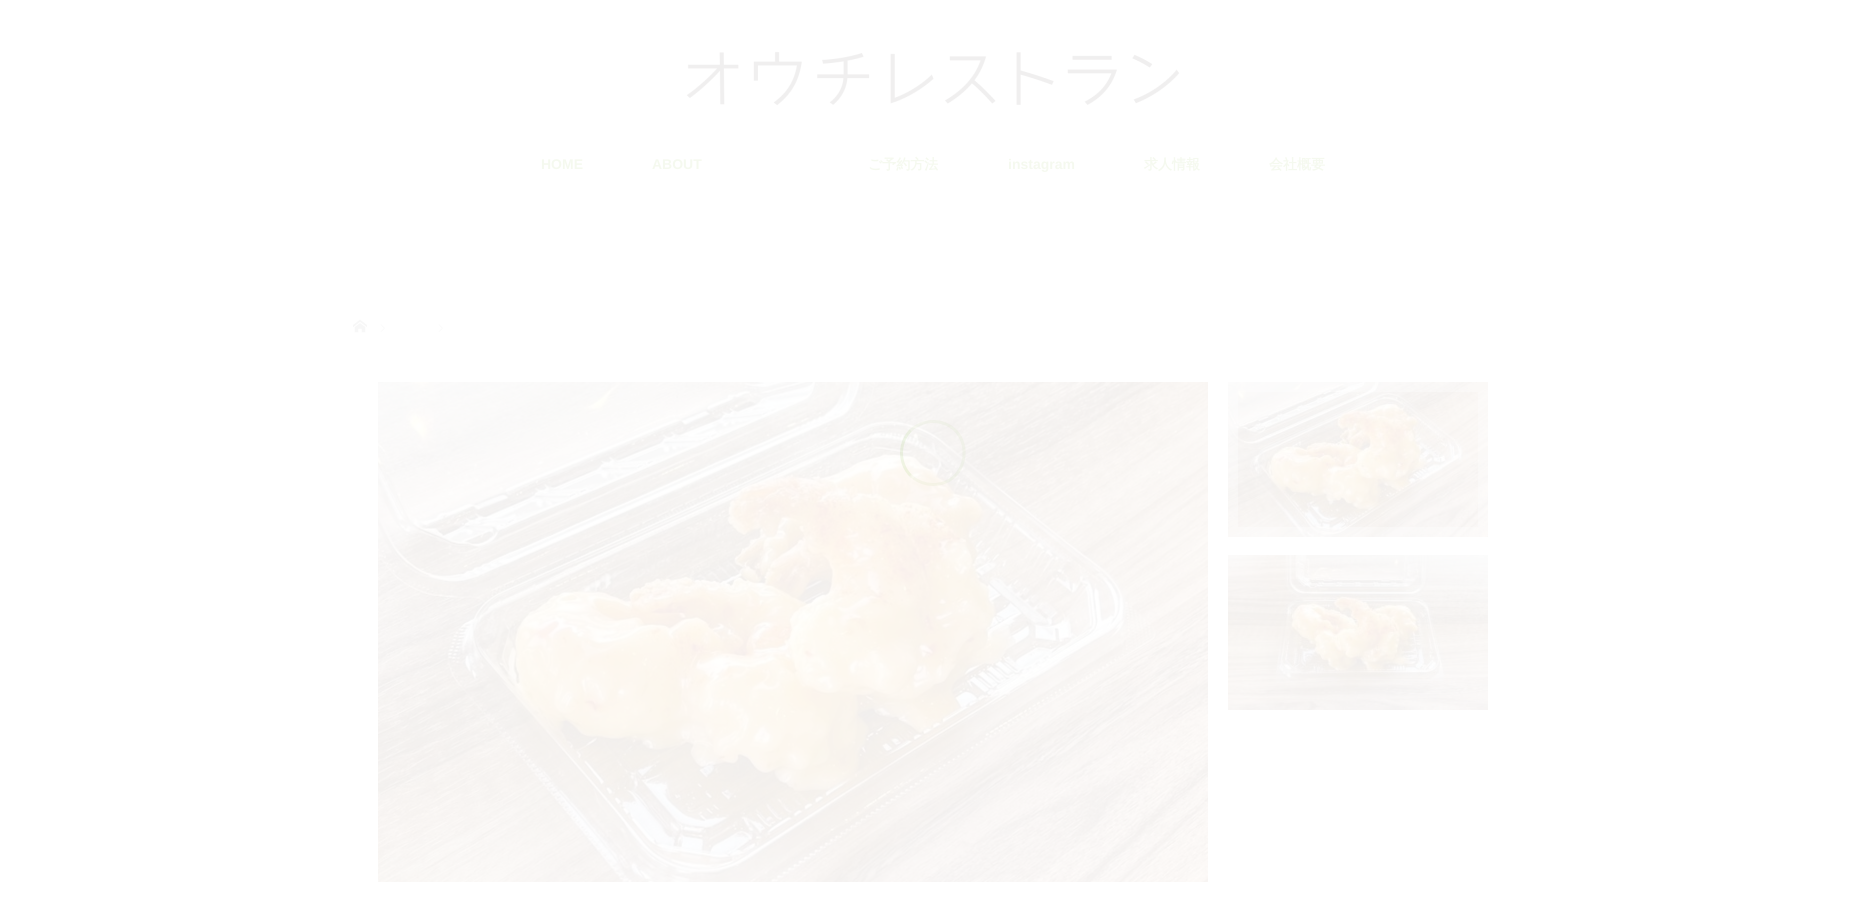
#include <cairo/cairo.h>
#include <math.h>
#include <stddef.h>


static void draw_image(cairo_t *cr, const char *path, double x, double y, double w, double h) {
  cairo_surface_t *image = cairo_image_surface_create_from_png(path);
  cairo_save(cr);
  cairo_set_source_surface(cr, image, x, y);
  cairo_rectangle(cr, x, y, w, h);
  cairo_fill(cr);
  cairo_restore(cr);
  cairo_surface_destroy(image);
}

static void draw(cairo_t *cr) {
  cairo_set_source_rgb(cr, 1, 1, 1);
  cairo_paint(cr);
  draw_image(cr, "images/1.png", 686, 51, 494, 55);
  draw_image(cr, "images/2.png", 353, 319, 14, 14);
  draw_image(cr, "images/3.png", 380, 324, 5, 8);
  draw_image(cr, "images/3.png", 438, 324, 5, 8);
  draw_image(cr, "images/4.png", 378, 382, 830, 500);
  draw_image(cr, "images/5.png", 1228, 382, 260, 155);
  cairo_rectangle(cr, 1233, 387, 250, 145);
  cairo_set_source_rgba(cr, 1, 1, 1, 0.3);
  cairo_set_line_width(cr, 10);
  cairo_stroke(cr);
  draw_image(cr, "images/6.png", 1228, 555, 260, 155);
  cairo_new_path(cr);
  cairo_move_to(cr, 910.5, 430.5);
  cairo_curve_to(cr, 918, 423.5, 929, 420, 939, 422);
  cairo_curve_to(cr, 976, 429.5, 970.5, 484.5, 933, 484.5);
  cairo_curve_to(cr, 924.5, 484.5, 916.5, 481, 910.5, 475.5);
  cairo_set_source_rgba(cr, 108 / 255.0, 176 / 255.0, 30 / 255.0, 0.05);
  cairo_set_line_width(cr, 3);
  cairo_stroke(cr);
  cairo_new_path(cr);
  cairo_move_to(cr, 910.5, 475.5);
  cairo_curve_to(cr, 898.5, 463, 898.5, 443, 910.5, 430.5);
  cairo_set_source_rgba(cr, 108 / 255.0, 176 / 255.0, 30 / 255.0, 0.1);
  cairo_stroke(cr);
  cairo_select_font_face(cr, "Liberation Sans", CAIRO_FONT_SLANT_NORMAL, CAIRO_FONT_WEIGHT_BOLD);
  cairo_set_font_size(cr, 14);
  cairo_set_source_rgb(cr, 245 / 255.0, 249 / 255.0, 239 / 255.0);
  cairo_move_to(cr, 541, 169);
  cairo_show_text(cr, "HOME");
  cairo_move_to(cr, 652, 169);
  cairo_show_text(cr, "ABOUT");
  cairo_select_font_face(cr, "WenQuanYi Zen Hei", CAIRO_FONT_SLANT_NORMAL, CAIRO_FONT_WEIGHT_BOLD);
  cairo_move_to(cr, 868, 169);
  cairo_show_text(cr, "ご予約方法");
  cairo_select_font_face(cr, "Liberation Sans", CAIRO_FONT_SLANT_NORMAL, CAIRO_FONT_WEIGHT_BOLD);
  cairo_move_to(cr, 1008, 169);
  cairo_show_text(cr, "instagram");
  cairo_select_font_face(cr, "WenQuanYi Zen Hei", CAIRO_FONT_SLANT_NORMAL, CAIRO_FONT_WEIGHT_BOLD);
  cairo_move_to(cr, 1144, 169);
  cairo_show_text(cr, "求人情報");
  cairo_move_to(cr, 1269, 169);
  cairo_show_text(cr, "会社概要");
}

int main(void) {
  cairo_surface_t *surface = cairo_image_surface_create(CAIRO_FORMAT_RGB24, 1866, 905);
  cairo_t *cr = cairo_create(surface);
  cairo_font_options_t *options = cairo_font_options_create();
  cairo_font_options_set_hint_metrics(options, CAIRO_HINT_METRICS_OFF);
  cairo_font_options_set_hint_style(options, CAIRO_HINT_STYLE_NONE);
  cairo_set_font_options(cr, options);
  cairo_set_miter_limit(cr, 4);
  draw(cr);
  cairo_surface_write_to_png(surface, "out.png");
  cairo_font_options_destroy(options);
  cairo_destroy(cr);
  cairo_surface_destroy(surface);
  return 0;
}
